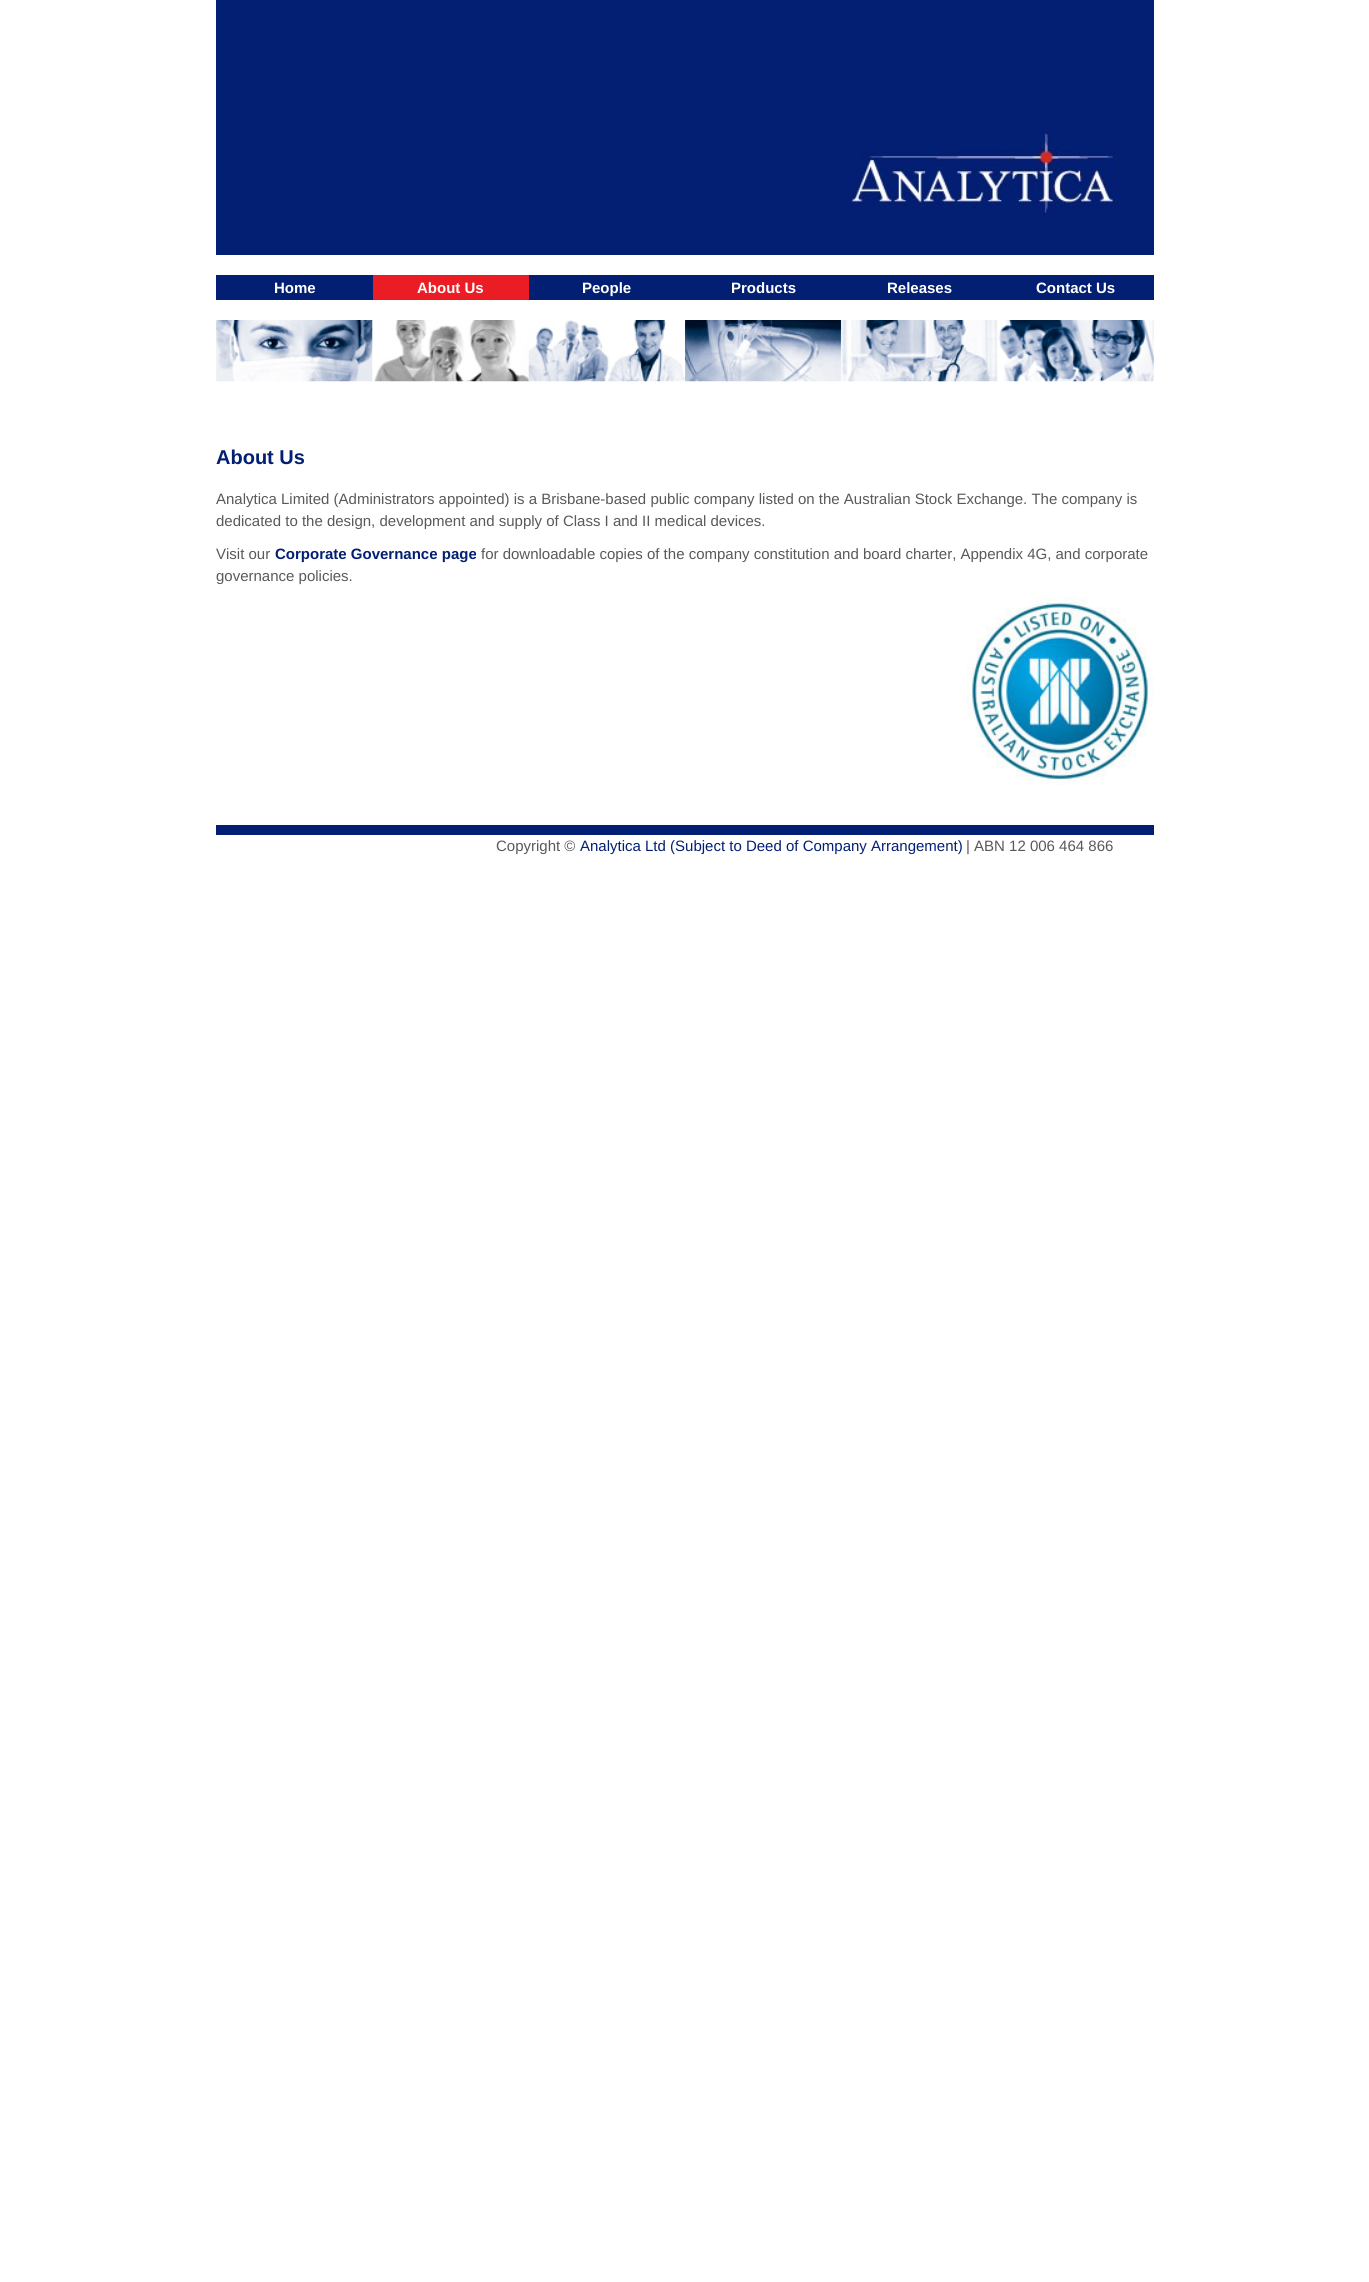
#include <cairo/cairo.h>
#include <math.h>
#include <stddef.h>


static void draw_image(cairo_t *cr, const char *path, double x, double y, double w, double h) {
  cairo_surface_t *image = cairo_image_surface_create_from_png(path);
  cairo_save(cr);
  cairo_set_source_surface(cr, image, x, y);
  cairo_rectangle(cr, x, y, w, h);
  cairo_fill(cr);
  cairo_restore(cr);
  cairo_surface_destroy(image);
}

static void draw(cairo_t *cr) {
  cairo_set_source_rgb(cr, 1, 1, 1);
  cairo_paint(cr);
  cairo_set_source_rgb(cr, 3 / 255.0, 31 / 255.0, 115 / 255.0);
  cairo_rectangle(cr, 216, 0, 938, 255);
  cairo_fill(cr);
  draw_image(cr, "images/1.png", 841, 127, 280, 89);
  cairo_rectangle(cr, 216, 275, 157, 25);
  cairo_fill(cr);
  cairo_set_source_rgb(cr, 236 / 255.0, 28 / 255.0, 36 / 255.0);
  cairo_rectangle(cr, 373, 275, 156, 25);
  cairo_fill(cr);
  cairo_set_source_rgb(cr, 3 / 255.0, 31 / 255.0, 115 / 255.0);
  cairo_rectangle(cr, 529, 275, 625, 25);
  cairo_fill(cr);
  draw_image(cr, "images/2.png", 216, 320, 157, 62);
  draw_image(cr, "images/3.png", 372, 320, 157, 62);
  draw_image(cr, "images/4.png", 528, 320, 157, 62);
  draw_image(cr, "images/5.png", 685, 320, 157, 62);
  draw_image(cr, "images/6.png", 841, 320, 157, 62);
  draw_image(cr, "images/7.png", 997, 320, 157, 62);
  draw_image(cr, "images/8.png", 966, 597, 188, 188);
  cairo_rectangle(cr, 216, 825, 938, 10);
  cairo_fill(cr);
  cairo_select_font_face(cr, "Liberation Sans", CAIRO_FONT_SLANT_NORMAL, CAIRO_FONT_WEIGHT_BOLD);
  cairo_set_font_size(cr, 15);
  cairo_set_source_rgb(cr, 1, 1, 1);
  cairo_move_to(cr, 274, 293);
  cairo_show_text(cr, "Home");
  cairo_move_to(cr, 417, 293);
  cairo_show_text(cr, "About Us");
  cairo_move_to(cr, 582, 293);
  cairo_show_text(cr, "People");
  cairo_move_to(cr, 731, 293);
  cairo_show_text(cr, "Products");
  cairo_move_to(cr, 887, 293);
  cairo_show_text(cr, "Releases");
  cairo_move_to(cr, 1036, 293);
  cairo_show_text(cr, "Contact Us");
  cairo_set_font_size(cr, 20);
  cairo_set_source_rgb(cr, 3 / 255.0, 31 / 255.0, 115 / 255.0);
  cairo_move_to(cr, 216, 464);
  cairo_show_text(cr, "About Us");
  cairo_select_font_face(cr, "Liberation Sans", CAIRO_FONT_SLANT_NORMAL, CAIRO_FONT_WEIGHT_NORMAL);
  cairo_set_font_size(cr, 15);
  cairo_set_source_rgb(cr, 88 / 255.0, 89 / 255.0, 91 / 255.0);
  cairo_move_to(cr, 216, 504);
  cairo_show_text(cr, "Analytica Limited (Administrators appointed) is a Brisbane-based public company listed on the Australian Stock Exchange. The company is");
  cairo_move_to(cr, 216, 526);
  cairo_show_text(cr, "dedicated to the design, development and supply of Class I and II medical devices.");
  cairo_move_to(cr, 216, 559);
  cairo_show_text(cr, "Visit our");
  cairo_select_font_face(cr, "Liberation Sans", CAIRO_FONT_SLANT_NORMAL, CAIRO_FONT_WEIGHT_BOLD);
  cairo_set_source_rgb(cr, 3 / 255.0, 31 / 255.0, 115 / 255.0);
  cairo_move_to(cr, 275, 559);
  cairo_show_text(cr, "Corporate Governance page");
  cairo_select_font_face(cr, "Liberation Sans", CAIRO_FONT_SLANT_NORMAL, CAIRO_FONT_WEIGHT_NORMAL);
  cairo_set_source_rgb(cr, 88 / 255.0, 89 / 255.0, 91 / 255.0);
  cairo_move_to(cr, 481, 559);
  cairo_show_text(cr, "for downloadable copies of the company constitution and board charter, Appendix 4G, and corporate");
  cairo_move_to(cr, 216, 581);
  cairo_show_text(cr, "governance policies.");
  cairo_move_to(cr, 496, 851);
  cairo_show_text(cr, "Copyright ©");
  cairo_set_source_rgb(cr, 3 / 255.0, 31 / 255.0, 115 / 255.0);
  cairo_move_to(cr, 580, 851);
  cairo_show_text(cr, "Analytica Ltd (Subject to Deed of Company Arrangement)");
  cairo_set_source_rgb(cr, 88 / 255.0, 89 / 255.0, 91 / 255.0);
  cairo_move_to(cr, 966, 851);
  cairo_show_text(cr, "| ABN 12 006 464 866");
}

int main(void) {
  cairo_surface_t *surface = cairo_image_surface_create(CAIRO_FORMAT_RGB24, 1369, 2282);
  cairo_t *cr = cairo_create(surface);
  cairo_font_options_t *options = cairo_font_options_create();
  cairo_font_options_set_hint_metrics(options, CAIRO_HINT_METRICS_OFF);
  cairo_font_options_set_hint_style(options, CAIRO_HINT_STYLE_NONE);
  cairo_set_font_options(cr, options);
  cairo_set_miter_limit(cr, 4);
  draw(cr);
  cairo_surface_write_to_png(surface, "out.png");
  cairo_font_options_destroy(options);
  cairo_destroy(cr);
  cairo_surface_destroy(surface);
  return 0;
}
